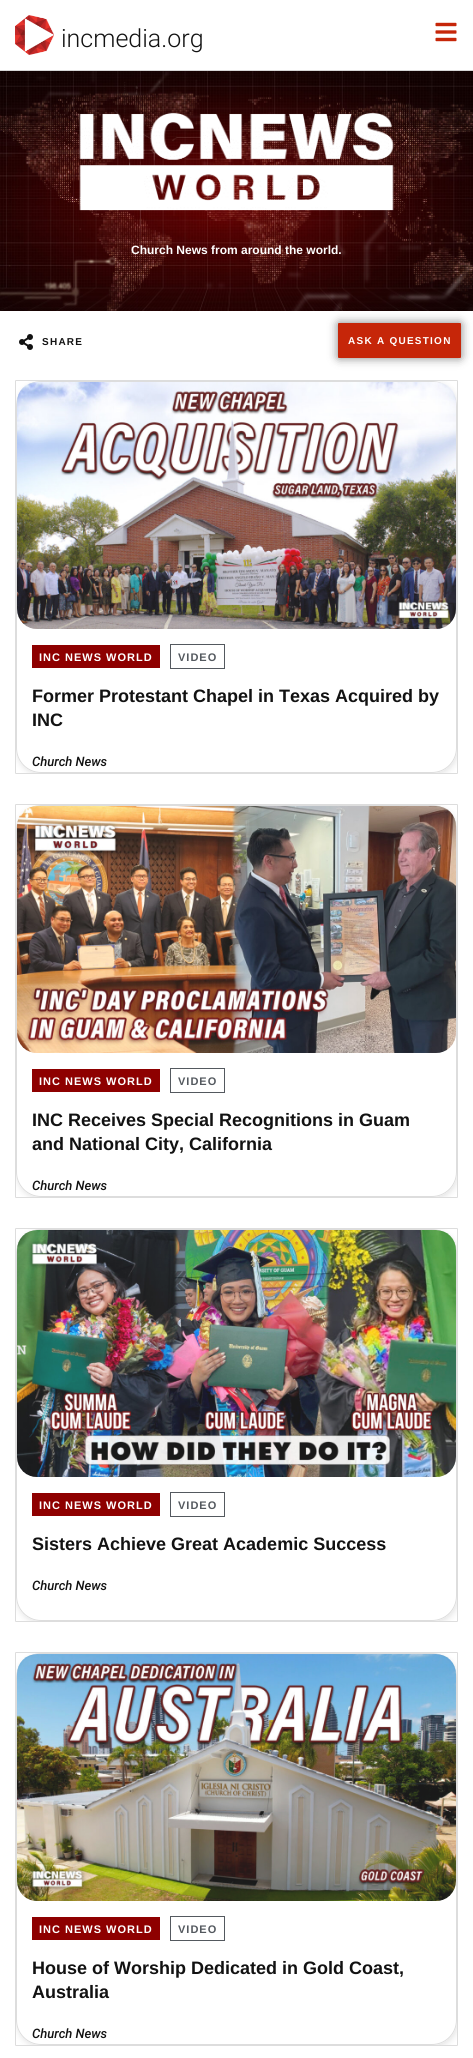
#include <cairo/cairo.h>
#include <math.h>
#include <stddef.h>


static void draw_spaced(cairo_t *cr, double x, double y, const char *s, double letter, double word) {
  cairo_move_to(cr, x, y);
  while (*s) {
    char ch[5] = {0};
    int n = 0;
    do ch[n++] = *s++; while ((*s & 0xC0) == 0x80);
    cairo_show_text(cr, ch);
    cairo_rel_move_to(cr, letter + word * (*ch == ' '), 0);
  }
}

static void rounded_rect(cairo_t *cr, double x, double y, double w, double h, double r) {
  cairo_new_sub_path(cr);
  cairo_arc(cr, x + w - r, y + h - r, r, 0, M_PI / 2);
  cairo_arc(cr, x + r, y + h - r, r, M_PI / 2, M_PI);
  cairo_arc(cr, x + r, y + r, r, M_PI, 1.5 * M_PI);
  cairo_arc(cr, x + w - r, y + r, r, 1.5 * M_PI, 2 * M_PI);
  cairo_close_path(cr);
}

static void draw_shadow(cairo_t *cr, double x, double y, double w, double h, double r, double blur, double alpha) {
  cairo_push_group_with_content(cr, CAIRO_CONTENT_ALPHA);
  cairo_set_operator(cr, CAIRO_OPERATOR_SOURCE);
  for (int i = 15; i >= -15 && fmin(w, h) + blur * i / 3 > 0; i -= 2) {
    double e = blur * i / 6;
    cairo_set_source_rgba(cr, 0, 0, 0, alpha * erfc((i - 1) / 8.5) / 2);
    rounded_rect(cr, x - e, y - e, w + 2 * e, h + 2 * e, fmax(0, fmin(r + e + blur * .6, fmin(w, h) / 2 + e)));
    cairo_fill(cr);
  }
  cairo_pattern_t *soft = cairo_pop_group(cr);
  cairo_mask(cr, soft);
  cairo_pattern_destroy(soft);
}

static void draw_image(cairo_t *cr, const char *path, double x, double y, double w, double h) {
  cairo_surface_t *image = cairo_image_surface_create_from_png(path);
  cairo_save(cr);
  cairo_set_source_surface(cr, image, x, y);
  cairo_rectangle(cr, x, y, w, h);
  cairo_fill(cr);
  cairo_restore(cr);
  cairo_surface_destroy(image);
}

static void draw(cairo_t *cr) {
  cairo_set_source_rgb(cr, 1, 1, 1);
  cairo_paint(cr);
  cairo_set_source_rgb(cr, 214 / 255.0, 214 / 255.0, 214 / 255.0);
  cairo_rectangle(cr, 0, 70, 473, 1);
  cairo_fill(cr);
  draw_image(cr, "images/1.png", 15, 15, 39, 40);
  draw_image(cr, "images/2.png", 435, 22, 22, 20);
  draw_image(cr, "images/3.png", 0, 71, 473, 240);
  draw_image(cr, "images/4.png", 79, 113, 315, 98);
  draw_image(cr, "images/5.png", 19, 334, 14, 16);
  cairo_set_source_rgb(cr, 0, 0, 0);
  draw_shadow(cr, 338, 323, 123, 35, 1, 5, 0.5);
  cairo_set_source_rgb(cr, 198 / 255.0, 38 / 255.0, 9 / 255.0);
  rounded_rect(cr, 338, 323, 123, 35, 1);
  cairo_fill(cr);
  rounded_rect(cr, 15.5, 380.5, 442, 393, 0.5);
  cairo_set_source_rgb(cr, 221 / 255.0, 221 / 255.0, 221 / 255.0);
  cairo_set_line_width(cr, 1);
  cairo_stroke(cr);
  cairo_save(cr);
  cairo_rectangle(cr, 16, 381, 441, 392);
  cairo_clip(cr);
  cairo_set_fill_rule(cr, CAIRO_FILL_RULE_EVEN_ODD);
  cairo_new_path(cr);
  cairo_move_to(cr, 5, 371);
  cairo_line_to(cr, 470, 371);
  cairo_line_to(cr, 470, 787);
  cairo_line_to(cr, 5, 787);
  cairo_close_path(cr);
  cairo_move_to(cr, 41, 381);
  cairo_line_to(cr, 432, 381);
  cairo_curve_to(cr, 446, 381, 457, 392, 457, 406);
  cairo_line_to(cr, 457, 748);
  cairo_curve_to(cr, 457, 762, 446, 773, 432, 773);
  cairo_line_to(cr, 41, 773);
  cairo_curve_to(cr, 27, 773, 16, 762, 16, 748);
  cairo_line_to(cr, 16, 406);
  cairo_curve_to(cr, 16, 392, 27, 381, 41, 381);
  cairo_close_path(cr);
  cairo_clip(cr);
  cairo_set_source_rgb(cr, 0, 0, 0);
  draw_shadow(cr, 17, 383, 441, 392, 25, 3.5, 0.13);
  cairo_restore(cr);
  rounded_rect(cr, 16.5, 381.5, 440, 391, 24.5);
  cairo_stroke(cr);
  draw_image(cr, "images/6.png", 17, 382, 439, 247);
  cairo_set_source_rgb(cr, 142 / 255.0, 0, 0);
  cairo_rectangle(cr, 32, 645, 128, 23);
  cairo_fill(cr);
  cairo_rectangle(cr, 170.5, 644.5, 54, 24);
  cairo_set_source_rgb(cr, 84 / 255.0, 89 / 255.0, 95 / 255.0);
  cairo_stroke(cr);
  rounded_rect(cr, 15.5, 804.5, 442, 393, 0.5);
  cairo_set_source_rgb(cr, 221 / 255.0, 221 / 255.0, 221 / 255.0);
  cairo_stroke(cr);
  cairo_save(cr);
  cairo_rectangle(cr, 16, 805, 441, 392);
  cairo_clip(cr);
  cairo_set_fill_rule(cr, CAIRO_FILL_RULE_EVEN_ODD);
  cairo_new_path(cr);
  cairo_move_to(cr, 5, 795);
  cairo_line_to(cr, 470, 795);
  cairo_line_to(cr, 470, 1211);
  cairo_line_to(cr, 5, 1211);
  cairo_close_path(cr);
  cairo_move_to(cr, 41, 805);
  cairo_line_to(cr, 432, 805);
  cairo_curve_to(cr, 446, 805, 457, 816, 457, 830);
  cairo_line_to(cr, 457, 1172);
  cairo_curve_to(cr, 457, 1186, 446, 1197, 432, 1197);
  cairo_line_to(cr, 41, 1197);
  cairo_curve_to(cr, 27, 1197, 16, 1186, 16, 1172);
  cairo_line_to(cr, 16, 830);
  cairo_curve_to(cr, 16, 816, 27, 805, 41, 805);
  cairo_close_path(cr);
  cairo_clip(cr);
  cairo_set_source_rgb(cr, 0, 0, 0);
  draw_shadow(cr, 17, 807, 441, 392, 25, 3.5, 0.13);
  cairo_restore(cr);
  rounded_rect(cr, 16.5, 805.5, 440, 391, 24.5);
  cairo_stroke(cr);
  draw_image(cr, "images/7.png", 17, 806, 439, 247);
  cairo_set_source_rgb(cr, 142 / 255.0, 0, 0);
  cairo_rectangle(cr, 32, 1069, 128, 23);
  cairo_fill(cr);
  cairo_rectangle(cr, 170.5, 1068.5, 54, 24);
  cairo_set_source_rgb(cr, 84 / 255.0, 89 / 255.0, 95 / 255.0);
  cairo_stroke(cr);
  rounded_rect(cr, 15.5, 1228.5, 442, 393, 0.5);
  cairo_set_source_rgb(cr, 221 / 255.0, 221 / 255.0, 221 / 255.0);
  cairo_stroke(cr);
  cairo_save(cr);
  cairo_rectangle(cr, 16, 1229, 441, 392);
  cairo_clip(cr);
  cairo_set_fill_rule(cr, CAIRO_FILL_RULE_EVEN_ODD);
  cairo_new_path(cr);
  cairo_move_to(cr, 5, 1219);
  cairo_line_to(cr, 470, 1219);
  cairo_line_to(cr, 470, 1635);
  cairo_line_to(cr, 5, 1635);
  cairo_close_path(cr);
  cairo_move_to(cr, 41, 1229);
  cairo_line_to(cr, 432, 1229);
  cairo_curve_to(cr, 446, 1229, 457, 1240, 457, 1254);
  cairo_line_to(cr, 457, 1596);
  cairo_curve_to(cr, 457, 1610, 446, 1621, 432, 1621);
  cairo_line_to(cr, 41, 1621);
  cairo_curve_to(cr, 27, 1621, 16, 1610, 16, 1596);
  cairo_line_to(cr, 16, 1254);
  cairo_curve_to(cr, 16, 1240, 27, 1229, 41, 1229);
  cairo_close_path(cr);
  cairo_clip(cr);
  cairo_set_source_rgb(cr, 0, 0, 0);
  draw_shadow(cr, 17, 1231, 441, 392, 25, 3.5, 0.13);
  cairo_restore(cr);
  rounded_rect(cr, 16.5, 1229.5, 440, 391, 24.5);
  cairo_stroke(cr);
  draw_image(cr, "images/8.png", 17, 1230, 439, 247);
  cairo_set_source_rgb(cr, 142 / 255.0, 0, 0);
  cairo_rectangle(cr, 32, 1493, 128, 23);
  cairo_fill(cr);
  cairo_rectangle(cr, 170.5, 1492.5, 54, 24);
  cairo_set_source_rgb(cr, 84 / 255.0, 89 / 255.0, 95 / 255.0);
  cairo_stroke(cr);
  rounded_rect(cr, 15.5, 1652.5, 442, 393, 0.5);
  cairo_set_source_rgb(cr, 221 / 255.0, 221 / 255.0, 221 / 255.0);
  cairo_stroke(cr);
  cairo_save(cr);
  cairo_rectangle(cr, 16, 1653, 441, 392);
  cairo_clip(cr);
  cairo_set_fill_rule(cr, CAIRO_FILL_RULE_EVEN_ODD);
  cairo_new_path(cr);
  cairo_move_to(cr, 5, 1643);
  cairo_line_to(cr, 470, 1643);
  cairo_line_to(cr, 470, 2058);
  cairo_line_to(cr, 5, 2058);
  cairo_close_path(cr);
  cairo_move_to(cr, 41, 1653);
  cairo_line_to(cr, 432, 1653);
  cairo_curve_to(cr, 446, 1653, 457, 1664, 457, 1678);
  cairo_line_to(cr, 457, 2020);
  cairo_curve_to(cr, 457, 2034, 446, 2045, 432, 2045);
  cairo_line_to(cr, 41, 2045);
  cairo_curve_to(cr, 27, 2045, 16, 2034, 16, 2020);
  cairo_line_to(cr, 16, 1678);
  cairo_curve_to(cr, 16, 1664, 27, 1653, 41, 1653);
  cairo_close_path(cr);
  cairo_clip(cr);
  cairo_set_source_rgb(cr, 0, 0, 0);
  draw_shadow(cr, 17, 1655, 441, 392, 25, 3.5, 0.13);
  cairo_restore(cr);
  rounded_rect(cr, 16.5, 1653.5, 440, 391, 24.5);
  cairo_stroke(cr);
  draw_image(cr, "images/9.png", 17, 1654, 439, 247);
  cairo_set_source_rgb(cr, 142 / 255.0, 0, 0);
  cairo_rectangle(cr, 32, 1917, 128, 23);
  cairo_fill(cr);
  cairo_rectangle(cr, 170.5, 1916.5, 54, 24);
  cairo_set_source_rgb(cr, 84 / 255.0, 89 / 255.0, 95 / 255.0);
  cairo_stroke(cr);
  cairo_select_font_face(cr, "Roboto Light", CAIRO_FONT_SLANT_NORMAL, CAIRO_FONT_WEIGHT_NORMAL);
  cairo_set_font_size(cr, 25);
  cairo_set_source_rgb(cr, 18 / 255.0, 18 / 255.0, 18 / 255.0);
  cairo_move_to(cr, 61, 47);
  cairo_show_text(cr, "incmedia.org");
  cairo_select_font_face(cr, "Liberation Sans", CAIRO_FONT_SLANT_NORMAL, CAIRO_FONT_WEIGHT_BOLD);
  cairo_set_font_size(cr, 12);
  cairo_set_source_rgb(cr, 1, 1, 1);
  cairo_move_to(cr, 131, 254);
  cairo_show_text(cr, "Church News from around the world.");
  cairo_set_font_size(cr, 10);
  cairo_set_source_rgb(cr, 18 / 255.0, 18 / 255.0, 18 / 255.0);
  draw_spaced(cr, 42, 345, "SHARE", 1.25, 0);
  cairo_set_source_rgb(cr, 1, 1, 1);
  draw_spaced(cr, 348, 344, "ASK A QUESTION", 1.25, 0);
  cairo_set_font_size(cr, 11);
  draw_spaced(cr, 39, 661, "INC NEWS WORLD", 1, 0);
  cairo_set_source_rgb(cr, 84 / 255.0, 89 / 255.0, 95 / 255.0);
  draw_spaced(cr, 178, 661, "VIDEO", 1, 0);
  cairo_set_font_size(cr, 18);
  cairo_set_source_rgb(cr, 18 / 255.0, 18 / 255.0, 18 / 255.0);
  cairo_move_to(cr, 32, 702);
  cairo_show_text(cr, "Former Protestant Chapel in Texas Acquired by");
  cairo_move_to(cr, 32, 726);
  cairo_show_text(cr, "INC");
  cairo_select_font_face(cr, "Roboto Medium", CAIRO_FONT_SLANT_ITALIC, CAIRO_FONT_WEIGHT_NORMAL);
  cairo_set_font_size(cr, 13);
  cairo_move_to(cr, 32, 766);
  cairo_show_text(cr, "Church News");
  cairo_select_font_face(cr, "Liberation Sans", CAIRO_FONT_SLANT_NORMAL, CAIRO_FONT_WEIGHT_BOLD);
  cairo_set_font_size(cr, 11);
  cairo_set_source_rgb(cr, 1, 1, 1);
  draw_spaced(cr, 39, 1085, "INC NEWS WORLD", 1, 0);
  cairo_set_source_rgb(cr, 84 / 255.0, 89 / 255.0, 95 / 255.0);
  draw_spaced(cr, 178, 1085, "VIDEO", 1, 0);
  cairo_set_font_size(cr, 18);
  cairo_set_source_rgb(cr, 18 / 255.0, 18 / 255.0, 18 / 255.0);
  cairo_move_to(cr, 32, 1126);
  cairo_show_text(cr, "INC Receives Special Recognitions in Guam");
  cairo_move_to(cr, 32, 1150);
  cairo_show_text(cr, "and National City, California");
  cairo_select_font_face(cr, "Roboto Medium", CAIRO_FONT_SLANT_ITALIC, CAIRO_FONT_WEIGHT_NORMAL);
  cairo_set_font_size(cr, 13);
  cairo_move_to(cr, 32, 1190);
  cairo_show_text(cr, "Church News");
  cairo_select_font_face(cr, "Liberation Sans", CAIRO_FONT_SLANT_NORMAL, CAIRO_FONT_WEIGHT_BOLD);
  cairo_set_font_size(cr, 11);
  cairo_set_source_rgb(cr, 1, 1, 1);
  draw_spaced(cr, 39, 1509, "INC NEWS WORLD", 1, 0);
  cairo_set_source_rgb(cr, 84 / 255.0, 89 / 255.0, 95 / 255.0);
  draw_spaced(cr, 178, 1509, "VIDEO", 1, 0);
  cairo_set_font_size(cr, 18);
  cairo_set_source_rgb(cr, 18 / 255.0, 18 / 255.0, 18 / 255.0);
  cairo_move_to(cr, 32, 1550);
  cairo_show_text(cr, "Sisters Achieve Great Academic Success");
  cairo_select_font_face(cr, "Roboto Medium", CAIRO_FONT_SLANT_ITALIC, CAIRO_FONT_WEIGHT_NORMAL);
  cairo_set_font_size(cr, 13);
  cairo_move_to(cr, 32, 1590);
  cairo_show_text(cr, "Church News");
  cairo_select_font_face(cr, "Liberation Sans", CAIRO_FONT_SLANT_NORMAL, CAIRO_FONT_WEIGHT_BOLD);
  cairo_set_font_size(cr, 11);
  cairo_set_source_rgb(cr, 1, 1, 1);
  draw_spaced(cr, 39, 1933, "INC NEWS WORLD", 1, 0);
  cairo_set_source_rgb(cr, 84 / 255.0, 89 / 255.0, 95 / 255.0);
  draw_spaced(cr, 178, 1933, "VIDEO", 1, 0);
  cairo_set_font_size(cr, 18);
  cairo_set_source_rgb(cr, 18 / 255.0, 18 / 255.0, 18 / 255.0);
  cairo_move_to(cr, 32, 1974);
  cairo_show_text(cr, "House of Worship Dedicated in Gold Coast,");
  cairo_move_to(cr, 32, 1998);
  cairo_show_text(cr, "Australia");
  cairo_select_font_face(cr, "Roboto Medium", CAIRO_FONT_SLANT_ITALIC, CAIRO_FONT_WEIGHT_NORMAL);
  cairo_set_font_size(cr, 13);
  cairo_move_to(cr, 32, 2038);
  cairo_show_text(cr, "Church News");
}

int main(void) {
  cairo_surface_t *surface = cairo_image_surface_create(CAIRO_FORMAT_RGB24, 473, 2058);
  cairo_t *cr = cairo_create(surface);
  cairo_font_options_t *options = cairo_font_options_create();
  cairo_font_options_set_hint_metrics(options, CAIRO_HINT_METRICS_OFF);
  cairo_font_options_set_hint_style(options, CAIRO_HINT_STYLE_NONE);
  cairo_set_font_options(cr, options);
  cairo_set_miter_limit(cr, 4);
  draw(cr);
  cairo_surface_write_to_png(surface, "out.png");
  cairo_font_options_destroy(options);
  cairo_destroy(cr);
  cairo_surface_destroy(surface);
  return 0;
}
